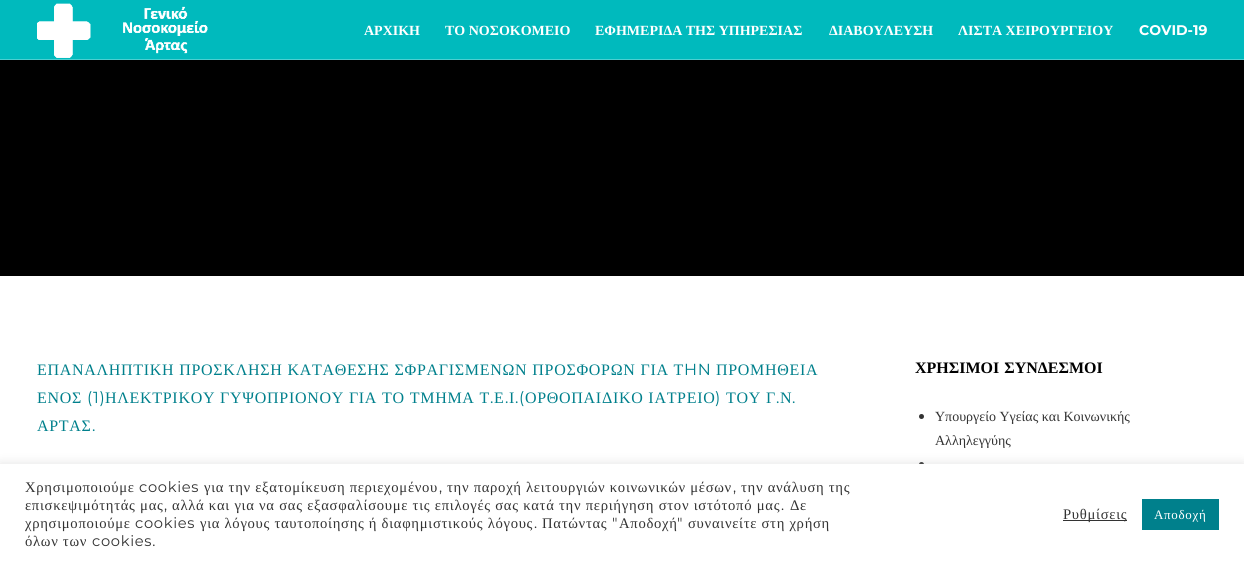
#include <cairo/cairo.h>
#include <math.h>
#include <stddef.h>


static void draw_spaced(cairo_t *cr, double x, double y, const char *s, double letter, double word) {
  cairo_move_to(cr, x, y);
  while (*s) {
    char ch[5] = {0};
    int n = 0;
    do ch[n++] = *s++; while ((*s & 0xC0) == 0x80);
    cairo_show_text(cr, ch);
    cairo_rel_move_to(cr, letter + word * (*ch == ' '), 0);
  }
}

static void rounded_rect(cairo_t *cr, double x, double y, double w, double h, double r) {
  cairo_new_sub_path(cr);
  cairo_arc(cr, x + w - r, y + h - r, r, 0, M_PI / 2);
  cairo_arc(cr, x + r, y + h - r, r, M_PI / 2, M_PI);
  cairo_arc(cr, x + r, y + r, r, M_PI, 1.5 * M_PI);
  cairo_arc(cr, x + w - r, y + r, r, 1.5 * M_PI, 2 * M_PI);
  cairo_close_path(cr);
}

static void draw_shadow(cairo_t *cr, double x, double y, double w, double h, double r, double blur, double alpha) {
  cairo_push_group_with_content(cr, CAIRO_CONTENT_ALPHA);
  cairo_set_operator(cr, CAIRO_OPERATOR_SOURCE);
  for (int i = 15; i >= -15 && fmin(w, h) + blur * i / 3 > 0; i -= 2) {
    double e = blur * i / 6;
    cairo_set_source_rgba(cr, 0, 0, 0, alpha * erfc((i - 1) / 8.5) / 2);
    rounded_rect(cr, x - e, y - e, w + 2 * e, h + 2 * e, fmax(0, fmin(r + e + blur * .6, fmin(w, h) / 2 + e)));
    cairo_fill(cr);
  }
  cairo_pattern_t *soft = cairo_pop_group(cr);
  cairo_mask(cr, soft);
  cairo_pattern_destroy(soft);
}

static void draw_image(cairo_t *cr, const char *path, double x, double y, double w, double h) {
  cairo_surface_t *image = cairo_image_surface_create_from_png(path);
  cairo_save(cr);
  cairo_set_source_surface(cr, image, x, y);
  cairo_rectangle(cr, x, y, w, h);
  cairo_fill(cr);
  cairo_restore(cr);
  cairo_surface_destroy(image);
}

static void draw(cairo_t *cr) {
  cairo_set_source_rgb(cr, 1, 1, 1);
  cairo_paint(cr);
  cairo_set_source_rgb(cr, 0, 186 / 255.0, 189 / 255.0);
  cairo_rectangle(cr, 0, 0, 1244, 59);
  cairo_fill(cr);
  cairo_set_source_rgb(cr, 77 / 255.0, 207 / 255.0, 209 / 255.0);
  cairo_rectangle(cr, 0, 59, 1244, 1);
  cairo_fill(cr);
  draw_image(cr, "images/1.png", 37, 3, 171, 55);
  cairo_set_source_rgb(cr, 0, 0, 0);
  cairo_rectangle(cr, 0, 60, 1244, 216);
  cairo_fill(cr);
  cairo_set_source_rgb(cr, 51 / 255.0, 51 / 255.0, 51 / 255.0);
  cairo_arc(cr, 921.5, 416.5, 2.5, 0, 2 * M_PI);
  cairo_fill(cr);
  cairo_arc(cr, 921.5, 464.5, 2.5, 0, 2 * M_PI);
  cairo_fill(cr);
  cairo_set_source_rgb(cr, 172 / 255.0, 171 / 255.0, 171 / 255.0);
  draw_shadow(cr, 0, 463, 1244, 100, 0, 5, 0.3);
  cairo_set_source_rgb(cr, 1, 1, 1);
  cairo_rectangle(cr, 0, 464, 1244, 100);
  cairo_fill(cr);
  cairo_set_source_rgb(cr, 51 / 255.0, 51 / 255.0, 51 / 255.0);
  cairo_rectangle(cr, 1063, 520, 64, 1);
  cairo_fill(cr);
  cairo_set_source_rgb(cr, 0, 128 / 255.0, 140 / 255.0);
  cairo_rectangle(cr, 1142, 499, 77, 31);
  cairo_fill(cr);
  cairo_select_font_face(cr, "Liberation Serif", CAIRO_FONT_SLANT_NORMAL, CAIRO_FONT_WEIGHT_BOLD);
  cairo_set_font_size(cr, 14);
  cairo_set_source_rgb(cr, 1, 1, 1);
  cairo_move_to(cr, 364, 35);
  cairo_show_text(cr, "ΑΡΧΙΚΗ");
  cairo_move_to(cr, 445, 35);
  cairo_show_text(cr, "ΤΟ ΝΟΣΟΚΟΜΕΙΟ");
  cairo_move_to(cr, 595, 35);
  cairo_show_text(cr, "ΕΦΗΜΕΡΙΔΑ ΤΗΣ ΥΠΗΡΕΣΙΑΣ");
  cairo_move_to(cr, 829, 35);
  cairo_show_text(cr, "ΔΙΑΒΟΥΛΕΥΣΗ");
  cairo_move_to(cr, 958, 35);
  cairo_show_text(cr, "ΛΙΣΤΑ ΧΕΙΡΟΥΡΓΕΙΟΥ");
  cairo_select_font_face(cr, "Montserrat", CAIRO_FONT_SLANT_NORMAL, CAIRO_FONT_WEIGHT_BOLD);
  cairo_move_to(cr, 1139, 35);
  cairo_show_text(cr, "COVID-19");
  cairo_select_font_face(cr, "Liberation Serif", CAIRO_FONT_SLANT_NORMAL, CAIRO_FONT_WEIGHT_NORMAL);
  cairo_set_font_size(cr, 16);
  cairo_set_source_rgb(cr, 0, 128 / 255.0, 140 / 255.0);
  draw_spaced(cr, 37, 375, "ΕΠΑΝΑΛΗΠΤΙΚΗ ΠΡΟΣΚΛΗΣΗ ΚΑΤΑΘΕΣΗΣ ΣΦΡΑΓΙΣΜΕΝΩΝ ΠΡΟΣΦΟΡΩΝ ΓΙΑ Τ", 0.7, 0.25);
  cairo_select_font_face(cr, "Montserrat", CAIRO_FONT_SLANT_NORMAL, CAIRO_FONT_WEIGHT_NORMAL);
  draw_spaced(cr, 684, 375, "HN", 0.7, 0);
  cairo_select_font_face(cr, "Liberation Serif", CAIRO_FONT_SLANT_NORMAL, CAIRO_FONT_WEIGHT_NORMAL);
  draw_spaced(cr, 716, 375, "ΠΡΟΜΗΘΕΙΑ", 0.7, 0);
  draw_spaced(cr, 37, 403, "ΕΝΟΣ", 0.7, 0);
  cairo_select_font_face(cr, "Montserrat", CAIRO_FONT_SLANT_NORMAL, CAIRO_FONT_WEIGHT_NORMAL);
  draw_spaced(cr, 87, 403, "(1)", 0.7, 0);
  cairo_select_font_face(cr, "Liberation Serif", CAIRO_FONT_SLANT_NORMAL, CAIRO_FONT_WEIGHT_NORMAL);
  draw_spaced(cr, 105, 403, "ΗΛΕΚΤΡΙΚΟΥ ΓΥΨΟΠΡΙΟΝΟΥ ΓΙΑ ΤΟ ΤΜΗΜΑ Τ", 0.7, 0.25);
  cairo_select_font_face(cr, "Montserrat", CAIRO_FONT_SLANT_NORMAL, CAIRO_FONT_WEIGHT_NORMAL);
  draw_spaced(cr, 490, 403, ".", 0.7, 0);
  cairo_select_font_face(cr, "Liberation Serif", CAIRO_FONT_SLANT_NORMAL, CAIRO_FONT_WEIGHT_NORMAL);
  draw_spaced(cr, 494, 403, "Ε", 0.7, 0);
  cairo_select_font_face(cr, "Montserrat", CAIRO_FONT_SLANT_NORMAL, CAIRO_FONT_WEIGHT_NORMAL);
  draw_spaced(cr, 505, 403, ".", 0.7, 0);
  cairo_select_font_face(cr, "Liberation Serif", CAIRO_FONT_SLANT_NORMAL, CAIRO_FONT_WEIGHT_NORMAL);
  draw_spaced(cr, 509, 403, "Ι", 0.7, 0);
  cairo_select_font_face(cr, "Montserrat", CAIRO_FONT_SLANT_NORMAL, CAIRO_FONT_WEIGHT_NORMAL);
  draw_spaced(cr, 515, 403, ".(", 0.7, 0);
  cairo_select_font_face(cr, "Liberation Serif", CAIRO_FONT_SLANT_NORMAL, CAIRO_FONT_WEIGHT_NORMAL);
  draw_spaced(cr, 525, 403, "ΟΡΘΟΠΑΙΔΙΚΟ ΙΑΤΡΕΙΟ", 0.7, 0.25);
  cairo_select_font_face(cr, "Montserrat", CAIRO_FONT_SLANT_NORMAL, CAIRO_FONT_WEIGHT_NORMAL);
  draw_spaced(cr, 715, 403, ")", 0.7, 0);
  cairo_select_font_face(cr, "Liberation Serif", CAIRO_FONT_SLANT_NORMAL, CAIRO_FONT_WEIGHT_NORMAL);
  draw_spaced(cr, 726, 403, "ΤΟΥ Γ", 0.7, 0.25);
  cairo_select_font_face(cr, "Montserrat", CAIRO_FONT_SLANT_NORMAL, CAIRO_FONT_WEIGHT_NORMAL);
  draw_spaced(cr, 776, 403, ".", 0.7, 0);
  cairo_select_font_face(cr, "Liberation Serif", CAIRO_FONT_SLANT_NORMAL, CAIRO_FONT_WEIGHT_NORMAL);
  draw_spaced(cr, 780, 403, "Ν", 0.7, 0);
  cairo_select_font_face(cr, "Montserrat", CAIRO_FONT_SLANT_NORMAL, CAIRO_FONT_WEIGHT_NORMAL);
  draw_spaced(cr, 792, 403, ".", 0.7, 0);
  cairo_select_font_face(cr, "Liberation Serif", CAIRO_FONT_SLANT_NORMAL, CAIRO_FONT_WEIGHT_NORMAL);
  draw_spaced(cr, 37, 431, "ΑΡΤΑΣ", 0.7, 0);
  cairo_select_font_face(cr, "Montserrat", CAIRO_FONT_SLANT_NORMAL, CAIRO_FONT_WEIGHT_NORMAL);
  draw_spaced(cr, 92, 431, ".", 0.7, 0);
  cairo_select_font_face(cr, "Liberation Serif", CAIRO_FONT_SLANT_NORMAL, CAIRO_FONT_WEIGHT_BOLD);
  cairo_set_source_rgb(cr, 0, 0, 0);
  draw_spaced(cr, 915, 373, "ΧΡΗΣΙΜΟΙ ΣΥΝΔΕΣΜΟΙ", 0, 1);
  cairo_select_font_face(cr, "Liberation Serif", CAIRO_FONT_SLANT_NORMAL, CAIRO_FONT_WEIGHT_NORMAL);
  cairo_set_font_size(cr, 14);
  cairo_set_source_rgb(cr, 51 / 255.0, 51 / 255.0, 51 / 255.0);
  cairo_move_to(cr, 935, 421);
  cairo_show_text(cr, "Υπουργείο Υγείας και Κοινωνικής");
  cairo_move_to(cr, 935, 445);
  cairo_show_text(cr, "Αλληλεγγύης");
  cairo_set_font_size(cr, 14.65);
  draw_spaced(cr, 25, 492, "Χρησιμοποιούμε", 0.7, 0);
  cairo_select_font_face(cr, "Montserrat", CAIRO_FONT_SLANT_NORMAL, CAIRO_FONT_WEIGHT_NORMAL);
  draw_spaced(cr, 139, 492, "cookies", 0.7, 0);
  cairo_select_font_face(cr, "Liberation Serif", CAIRO_FONT_SLANT_NORMAL, CAIRO_FONT_WEIGHT_NORMAL);
  draw_spaced(cr, 204, 492, "για την εξατομίκευση περιεχομένου", 0.7, 0);
  cairo_select_font_face(cr, "Montserrat", CAIRO_FONT_SLANT_NORMAL, CAIRO_FONT_WEIGHT_NORMAL);
  draw_spaced(cr, 439, 492, ",", 0.7, 0);
  cairo_select_font_face(cr, "Liberation Serif", CAIRO_FONT_SLANT_NORMAL, CAIRO_FONT_WEIGHT_NORMAL);
  draw_spaced(cr, 447, 492, "την παροχή λειτουργιών κοινωνικών μέσων", 0.7, 0);
  cairo_select_font_face(cr, "Montserrat", CAIRO_FONT_SLANT_NORMAL, CAIRO_FONT_WEIGHT_NORMAL);
  draw_spaced(cr, 733, 492, ",", 0.7, 0);
  cairo_select_font_face(cr, "Liberation Serif", CAIRO_FONT_SLANT_NORMAL, CAIRO_FONT_WEIGHT_NORMAL);
  draw_spaced(cr, 741, 492, "την ανάλυση της", 0.7, 0);
  draw_spaced(cr, 25, 510, "επισκεψιμότητάς μας", 0.7, 0.1);
  cairo_select_font_face(cr, "Montserrat", CAIRO_FONT_SLANT_NORMAL, CAIRO_FONT_WEIGHT_NORMAL);
  draw_spaced(cr, 164, 510, ",", 0.7, 0);
  cairo_select_font_face(cr, "Liberation Serif", CAIRO_FONT_SLANT_NORMAL, CAIRO_FONT_WEIGHT_NORMAL);
  draw_spaced(cr, 172, 510, "αλλά και για να σας εξασφαλίσουμε τις επιλογές σας κατά την περιήγηση στον ιστότοπό μας", 0.7, 0.1);
  cairo_select_font_face(cr, "Montserrat", CAIRO_FONT_SLANT_NORMAL, CAIRO_FONT_WEIGHT_NORMAL);
  draw_spaced(cr, 781, 510, ".", 0.7, 0);
  cairo_select_font_face(cr, "Liberation Serif", CAIRO_FONT_SLANT_NORMAL, CAIRO_FONT_WEIGHT_NORMAL);
  draw_spaced(cr, 790, 510, "Δε", 0.7, 0);
  draw_spaced(cr, 25, 528, "χρησιμοποιούμε", 0.7, 0);
  cairo_select_font_face(cr, "Montserrat", CAIRO_FONT_SLANT_NORMAL, CAIRO_FONT_WEIGHT_NORMAL);
  draw_spaced(cr, 135, 528, "cookies", 0.7, 0);
  cairo_select_font_face(cr, "Liberation Serif", CAIRO_FONT_SLANT_NORMAL, CAIRO_FONT_WEIGHT_NORMAL);
  draw_spaced(cr, 200, 528, "για λόγους ταυτοποίησης ή διαφημιστικούς λόγους", 0.7, 0);
  cairo_select_font_face(cr, "Montserrat", CAIRO_FONT_SLANT_NORMAL, CAIRO_FONT_WEIGHT_NORMAL);
  draw_spaced(cr, 534, 528, ".", 0.7, 0);
  cairo_select_font_face(cr, "Liberation Serif", CAIRO_FONT_SLANT_NORMAL, CAIRO_FONT_WEIGHT_NORMAL);
  draw_spaced(cr, 542, 528, "Πατώντας", 0.7, 0);
  cairo_select_font_face(cr, "Montserrat", CAIRO_FONT_SLANT_NORMAL, CAIRO_FONT_WEIGHT_NORMAL);
  draw_spaced(cr, 612, 528, "\"", 0.7, 0);
  cairo_select_font_face(cr, "Liberation Serif", CAIRO_FONT_SLANT_NORMAL, CAIRO_FONT_WEIGHT_NORMAL);
  draw_spaced(cr, 619, 528, "Αποδοχή", 0.7, 0);
  cairo_select_font_face(cr, "Montserrat", CAIRO_FONT_SLANT_NORMAL, CAIRO_FONT_WEIGHT_NORMAL);
  draw_spaced(cr, 677, 528, "\"", 0.7, 0);
  cairo_select_font_face(cr, "Liberation Serif", CAIRO_FONT_SLANT_NORMAL, CAIRO_FONT_WEIGHT_NORMAL);
  draw_spaced(cr, 688, 528, "συναινείτε στη χρήση", 0.7, 0);
  draw_spaced(cr, 25, 546, "όλων των", 0.7, 0);
  cairo_select_font_face(cr, "Montserrat", CAIRO_FONT_SLANT_NORMAL, CAIRO_FONT_WEIGHT_NORMAL);
  draw_spaced(cr, 92, 546, "cookies.", 0.7, 0);
  cairo_select_font_face(cr, "Liberation Serif", CAIRO_FONT_SLANT_NORMAL, CAIRO_FONT_WEIGHT_NORMAL);
  draw_spaced(cr, 1063, 519, "Ρυθμίσεις", 0.7, 0);
  cairo_set_font_size(cr, 13);
  cairo_set_source_rgb(cr, 1, 1, 1);
  draw_spaced(cr, 1154, 519, "Αποδοχή", 0.7, 0);
}

int main(void) {
  cairo_surface_t *surface = cairo_image_surface_create(CAIRO_FORMAT_RGB24, 1244, 564);
  cairo_t *cr = cairo_create(surface);
  cairo_font_options_t *options = cairo_font_options_create();
  cairo_font_options_set_hint_metrics(options, CAIRO_HINT_METRICS_OFF);
  cairo_font_options_set_hint_style(options, CAIRO_HINT_STYLE_NONE);
  cairo_set_font_options(cr, options);
  cairo_set_miter_limit(cr, 4);
  draw(cr);
  cairo_surface_write_to_png(surface, "out.png");
  cairo_font_options_destroy(options);
  cairo_destroy(cr);
  cairo_surface_destroy(surface);
  return 0;
}
